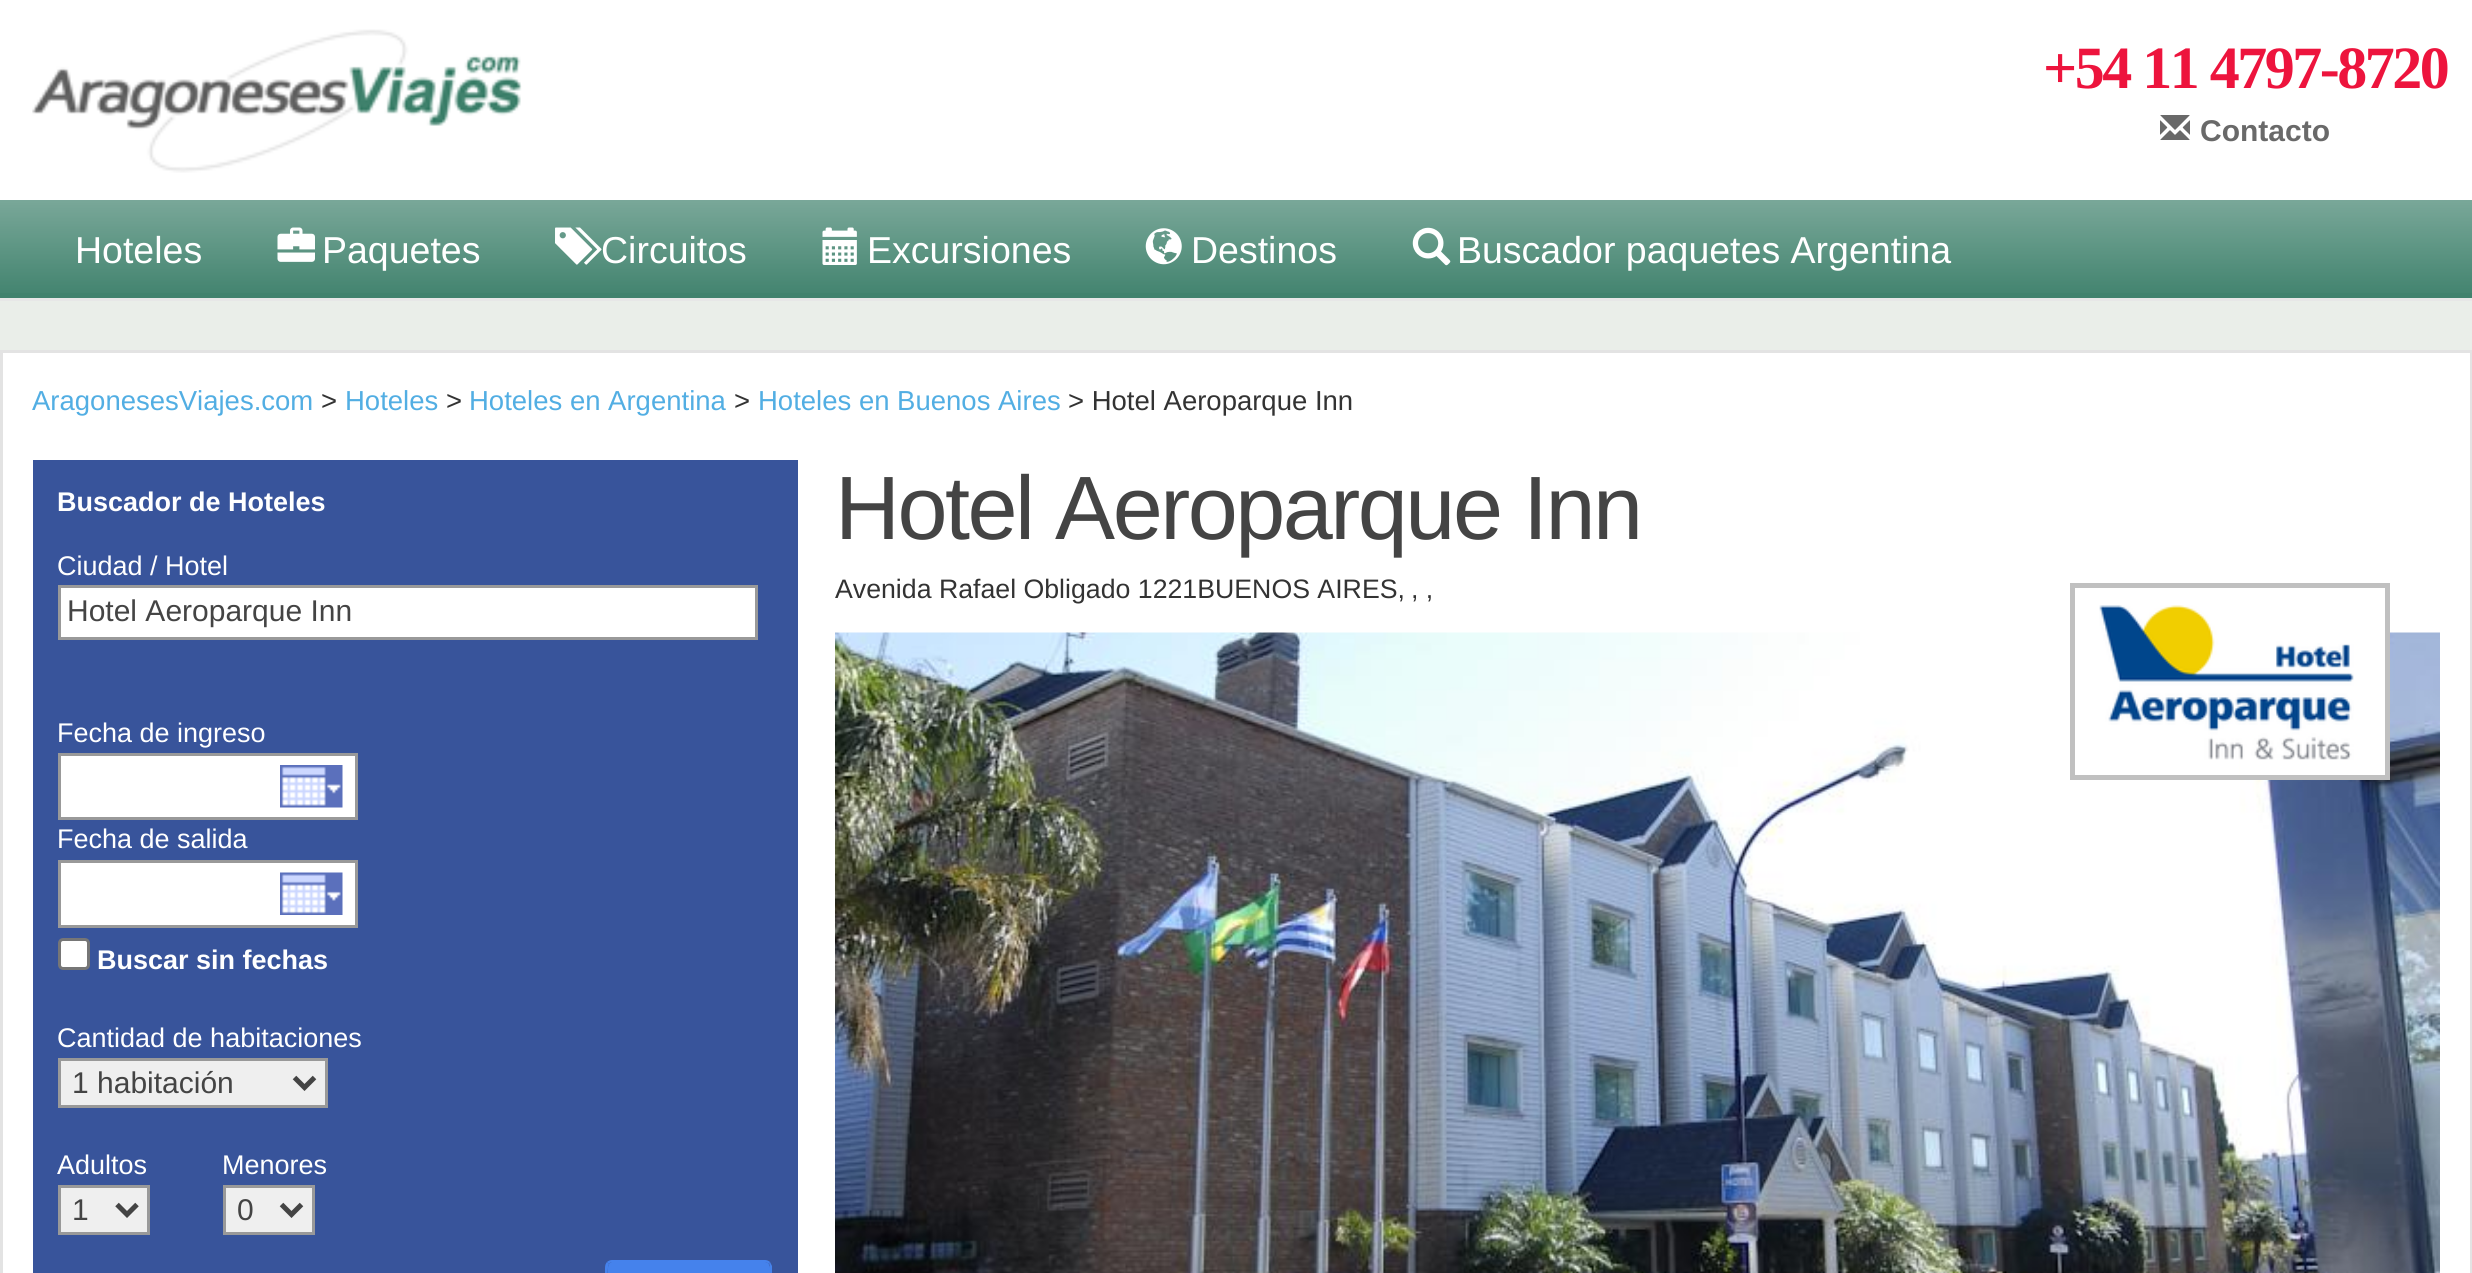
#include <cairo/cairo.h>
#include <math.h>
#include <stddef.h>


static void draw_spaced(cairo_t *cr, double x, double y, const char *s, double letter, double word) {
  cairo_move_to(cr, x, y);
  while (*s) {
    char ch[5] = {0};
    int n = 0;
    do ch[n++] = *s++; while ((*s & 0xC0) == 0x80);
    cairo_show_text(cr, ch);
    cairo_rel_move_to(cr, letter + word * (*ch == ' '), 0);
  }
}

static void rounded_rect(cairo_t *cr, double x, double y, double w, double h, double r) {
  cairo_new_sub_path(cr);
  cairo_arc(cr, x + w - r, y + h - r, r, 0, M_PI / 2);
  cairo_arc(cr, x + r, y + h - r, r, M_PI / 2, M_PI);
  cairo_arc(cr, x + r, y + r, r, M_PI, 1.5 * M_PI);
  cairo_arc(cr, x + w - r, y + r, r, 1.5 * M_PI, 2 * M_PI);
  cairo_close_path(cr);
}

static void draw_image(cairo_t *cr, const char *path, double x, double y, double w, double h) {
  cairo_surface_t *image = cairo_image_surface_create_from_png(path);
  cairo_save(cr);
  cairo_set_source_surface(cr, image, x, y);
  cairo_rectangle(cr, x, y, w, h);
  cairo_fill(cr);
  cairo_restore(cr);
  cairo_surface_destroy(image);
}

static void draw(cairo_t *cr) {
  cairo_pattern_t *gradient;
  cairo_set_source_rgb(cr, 234 / 255.0, 238 / 255.0, 233 / 255.0);
  cairo_paint(cr);
  cairo_set_source_rgb(cr, 1, 1, 1);
  cairo_rectangle(cr, 0, 0, 2472, 200);
  cairo_fill(cr);
  draw_image(cr, "images/1.png", 32, 29, 490, 144);
  draw_image(cr, "images/2.png", 2160, 115, 30, 25);
  cairo_set_source_rgb(cr, 64 / 255.0, 130 / 255.0, 109 / 255.0);
  cairo_rectangle(cr, 0, 200, 2472, 98);
  cairo_fill(cr);
  cairo_set_source_rgb(cr, 231 / 255.0, 231 / 255.0, 231 / 255.0);
  cairo_rectangle(cr, 0, 298, 2472, 3);
  cairo_fill(cr);
  gradient = cairo_pattern_create_linear(1236, 200, 1236, 300);
  cairo_pattern_add_color_stop_rgba(gradient, 0, 1, 1, 1, 0.3);
  cairo_pattern_add_color_stop_rgba(gradient, 1, 1, 1, 1, 0);
  cairo_set_source(cr, gradient);
  cairo_pattern_destroy(gradient);
  cairo_rectangle(cr, 0, 200, 2472, 93);
  cairo_fill(cr);
  draw_image(cr, "images/3.png", 277, 227, 38, 35);
  draw_image(cr, "images/4.png", 555, 227, 47, 38);
  draw_image(cr, "images/5.png", 822, 227, 35, 38);
  draw_image(cr, "images/6.png", 1145, 228, 37, 37);
  draw_image(cr, "images/7.png", 1412, 227, 39, 39);
  cairo_set_source_rgb(cr, 1, 1, 1);
  cairo_rectangle(cr, 1.5, 351.5, 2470, 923);
  cairo_fill_preserve(cr);
  cairo_set_source_rgb(cr, 227 / 255.0, 227 / 255.0, 227 / 255.0);
  cairo_set_line_width(cr, 3);
  cairo_stroke(cr);
  cairo_set_source_rgb(cr, 56 / 255.0, 84 / 255.0, 155 / 255.0);
  cairo_rectangle(cr, 33, 460, 765, 813);
  cairo_fill(cr);
  cairo_set_source_rgb(cr, 1, 1, 1);
  cairo_rectangle(cr, 59.5, 586.5, 697, 52);
  cairo_fill_preserve(cr);
  cairo_set_source_rgb(cr, 153 / 255.0, 153 / 255.0, 153 / 255.0);
  cairo_stroke(cr);
  cairo_set_source_rgb(cr, 1, 1, 1);
  cairo_rectangle(cr, 61, 756, 294, 61);
  cairo_fill(cr);
  draw_image(cr, "images/8.png", 280, 765, 63, 43);
  cairo_rectangle(cr, 59.5, 754.5, 297, 64);
  cairo_set_source_rgb(cr, 153 / 255.0, 153 / 255.0, 153 / 255.0);
  cairo_stroke(cr);
  cairo_set_source_rgb(cr, 1, 1, 1);
  cairo_rectangle(cr, 61, 863, 294, 62);
  cairo_fill(cr);
  draw_image(cr, "images/9.png", 280, 872, 63, 43);
  cairo_rectangle(cr, 59.5, 861.5, 297, 65);
  cairo_set_source_rgb(cr, 153 / 255.0, 153 / 255.0, 153 / 255.0);
  cairo_stroke(cr);
  cairo_set_source_rgb(cr, 1, 1, 1);
  rounded_rect(cr, 59.5, 939.5, 29, 29, 3.5);
  cairo_fill_preserve(cr);
  cairo_set_source_rgb(cr, 118 / 255.0, 118 / 255.0, 118 / 255.0);
  cairo_stroke(cr);
  cairo_set_source_rgb(cr, 239 / 255.0, 239 / 255.0, 239 / 255.0);
  cairo_rectangle(cr, 59.5, 1059.5, 267, 47);
  cairo_fill_preserve(cr);
  cairo_set_source_rgb(cr, 153 / 255.0, 153 / 255.0, 153 / 255.0);
  cairo_stroke(cr);
  cairo_new_path(cr);
  cairo_move_to(cr, 294.5, 1077.5);
  cairo_line_to(cr, 304.5, 1087.5);
  cairo_line_to(cr, 314.5, 1077.5);
  cairo_set_source_rgb(cr, 68 / 255.0, 68 / 255.0, 68 / 255.0);
  cairo_set_line_width(cr, 5);
  cairo_stroke(cr);
  cairo_set_source_rgb(cr, 239 / 255.0, 239 / 255.0, 239 / 255.0);
  cairo_rectangle(cr, 59.5, 1186.5, 89, 47);
  cairo_fill_preserve(cr);
  cairo_set_source_rgb(cr, 153 / 255.0, 153 / 255.0, 153 / 255.0);
  cairo_set_line_width(cr, 3);
  cairo_stroke(cr);
  cairo_new_path(cr);
  cairo_move_to(cr, 117, 1204.5);
  cairo_line_to(cr, 127, 1214.5);
  cairo_line_to(cr, 137, 1204.5);
  cairo_set_source_rgb(cr, 68 / 255.0, 68 / 255.0, 68 / 255.0);
  cairo_set_line_width(cr, 5);
  cairo_stroke(cr);
  cairo_set_source_rgb(cr, 239 / 255.0, 239 / 255.0, 239 / 255.0);
  cairo_rectangle(cr, 224.5, 1186.5, 89, 47);
  cairo_fill_preserve(cr);
  cairo_set_source_rgb(cr, 153 / 255.0, 153 / 255.0, 153 / 255.0);
  cairo_set_line_width(cr, 3);
  cairo_stroke(cr);
  cairo_new_path(cr);
  cairo_move_to(cr, 281.5, 1204.5);
  cairo_line_to(cr, 291.5, 1214.5);
  cairo_line_to(cr, 301.5, 1204.5);
  cairo_set_source_rgb(cr, 68 / 255.0, 68 / 255.0, 68 / 255.0);
  cairo_set_line_width(cr, 5);
  cairo_stroke(cr);
  cairo_set_source_rgb(cr, 69 / 255.0, 130 / 255.0, 236 / 255.0);
  cairo_new_path(cr);
  cairo_move_to(cr, 612, 1262);
  cairo_line_to(cr, 765, 1262);
  cairo_curve_to(cr, 768, 1262, 770, 1265, 770, 1268);
  cairo_line_to(cr, 770, 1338);
  cairo_curve_to(cr, 770, 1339, 768, 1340, 765, 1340);
  cairo_line_to(cr, 612, 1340);
  cairo_curve_to(cr, 610, 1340, 608, 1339, 608, 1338);
  cairo_line_to(cr, 608, 1268);
  cairo_curve_to(cr, 608, 1265, 610, 1262, 612, 1262);
  cairo_close_path(cr);
  cairo_fill(cr);
  cairo_new_path(cr);
  cairo_move_to(cr, 612, 1260);
  cairo_curve_to(cr, 610, 1260, 608, 1261, 607, 1262);
  cairo_line_to(cr, 609, 1264);
  cairo_curve_to(cr, 610, 1263, 611, 1262, 612, 1262);
  cairo_line_to(cr, 765, 1262);
  cairo_curve_to(cr, 766, 1262, 768, 1263, 769, 1264);
  cairo_line_to(cr, 770, 1262);
  cairo_curve_to(cr, 769, 1261, 767, 1260, 765, 1260);
  cairo_close_path(cr);
  cairo_fill(cr);
  cairo_new_path(cr);
  cairo_move_to(cr, 770, 1262);
  cairo_line_to(cr, 772, 1266);
  cairo_line_to(cr, 772, 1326);
  cairo_curve_to(cr, 772, 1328, 773, 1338, 771, 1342);
  cairo_line_to(cr, 769, 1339);
  cairo_line_to(cr, 770, 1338);
  cairo_line_to(cr, 770, 1268);
  cairo_curve_to(cr, 770, 1266, 770, 1265, 769, 1264);
  cairo_close_path(cr);
  cairo_fill(cr);
  cairo_new_path(cr);
  cairo_move_to(cr, 605, 1268);
  cairo_line_to(cr, 605, 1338);
  cairo_curve_to(cr, 605, 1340, 606, 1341, 606, 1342);
  cairo_line_to(cr, 608, 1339);
  cairo_line_to(cr, 608, 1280);
  cairo_curve_to(cr, 608, 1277, 607, 1268, 609, 1264);
  cairo_line_to(cr, 607, 1262);
  cairo_curve_to(cr, 606, 1263, 605, 1265, 605, 1268);
  cairo_close_path(cr);
  cairo_fill(cr);
  draw_image(cr, "images/11.png", 835, 632, 1605, 641);
  cairo_set_source_rgb(cr, 1, 1, 1);
  cairo_rectangle(cr, 2240, 632, 145, 143);
  cairo_fill(cr);
  cairo_rectangle(cr, 2072.5, 585.5, 315, 192);
  cairo_set_source_rgb(cr, 192 / 255.0, 192 / 255.0, 192 / 255.0);
  cairo_stroke(cr);
  draw_image(cr, "images/10.png", 2099, 605, 255, 155);
  cairo_select_font_face(cr, "Liberation Serif", CAIRO_FONT_SLANT_NORMAL, CAIRO_FONT_WEIGHT_BOLD);
  cairo_set_font_size(cr, 60);
  cairo_set_source_rgb(cr, 237 / 255.0, 20 / 255.0, 61 / 255.0);
  draw_spaced(cr, 2043, 88, "+54 11 4797-8720", -2.5, 0);
  cairo_select_font_face(cr, "Liberation Sans", CAIRO_FONT_SLANT_NORMAL, CAIRO_FONT_WEIGHT_BOLD);
  cairo_set_font_size(cr, 30);
  cairo_set_source_rgb(cr, 105 / 255.0, 105 / 255.0, 105 / 255.0);
  cairo_move_to(cr, 2200, 141);
  cairo_show_text(cr, "Contacto");
  cairo_select_font_face(cr, "Liberation Sans", CAIRO_FONT_SLANT_NORMAL, CAIRO_FONT_WEIGHT_NORMAL);
  cairo_set_font_size(cr, 37.5);
  cairo_set_source_rgb(cr, 1, 1, 1);
  cairo_move_to(cr, 75, 263);
  cairo_show_text(cr, "Hoteles");
  cairo_move_to(cr, 322, 263);
  cairo_show_text(cr, "Paquetes");
  cairo_move_to(cr, 601, 263);
  cairo_show_text(cr, "Circuitos");
  cairo_move_to(cr, 867, 263);
  cairo_show_text(cr, "Excursiones");
  cairo_move_to(cr, 1191, 263);
  cairo_show_text(cr, "Destinos");
  cairo_move_to(cr, 1457, 263);
  cairo_show_text(cr, "Buscador paquetes Argentina");
  cairo_set_font_size(cr, 27.5);
  cairo_set_source_rgb(cr, 82 / 255.0, 174 / 255.0, 227 / 255.0);
  cairo_move_to(cr, 32, 410);
  cairo_show_text(cr, "AragonesesViajes.com");
  cairo_set_source_rgb(cr, 51 / 255.0, 51 / 255.0, 51 / 255.0);
  cairo_move_to(cr, 321, 410);
  cairo_show_text(cr, ">");
  cairo_set_source_rgb(cr, 82 / 255.0, 174 / 255.0, 227 / 255.0);
  cairo_move_to(cr, 345, 410);
  cairo_show_text(cr, "Hoteles");
  cairo_set_source_rgb(cr, 51 / 255.0, 51 / 255.0, 51 / 255.0);
  cairo_move_to(cr, 446, 410);
  cairo_show_text(cr, ">");
  cairo_set_source_rgb(cr, 82 / 255.0, 174 / 255.0, 227 / 255.0);
  cairo_move_to(cr, 469, 410);
  cairo_show_text(cr, "Hoteles en Argentina");
  cairo_set_source_rgb(cr, 51 / 255.0, 51 / 255.0, 51 / 255.0);
  cairo_move_to(cr, 734, 410);
  cairo_show_text(cr, ">");
  cairo_set_source_rgb(cr, 82 / 255.0, 174 / 255.0, 227 / 255.0);
  cairo_move_to(cr, 758, 410);
  cairo_show_text(cr, "Hoteles en Buenos Aires");
  cairo_set_source_rgb(cr, 51 / 255.0, 51 / 255.0, 51 / 255.0);
  cairo_move_to(cr, 1068, 410);
  cairo_show_text(cr, "> Hotel Aeroparque Inn");
  cairo_select_font_face(cr, "Liberation Sans", CAIRO_FONT_SLANT_NORMAL, CAIRO_FONT_WEIGHT_BOLD);
  cairo_set_font_size(cr, 27);
  cairo_set_source_rgb(cr, 1, 1, 1);
  cairo_move_to(cr, 57, 511);
  cairo_show_text(cr, "Buscador de Hoteles");
  cairo_select_font_face(cr, "Liberation Sans", CAIRO_FONT_SLANT_NORMAL, CAIRO_FONT_WEIGHT_NORMAL);
  cairo_move_to(cr, 57, 575);
  cairo_show_text(cr, "Ciudad / Hotel");
  cairo_set_font_size(cr, 30);
  cairo_set_source_rgb(cr, 68 / 255.0, 68 / 255.0, 68 / 255.0);
  cairo_move_to(cr, 67, 621);
  cairo_show_text(cr, "Hotel Aeroparque Inn");
  cairo_set_font_size(cr, 27);
  cairo_set_source_rgb(cr, 1, 1, 1);
  cairo_move_to(cr, 57, 742);
  cairo_show_text(cr, "Fecha de ingreso");
  cairo_move_to(cr, 57, 848);
  cairo_show_text(cr, "Fecha de salida");
  cairo_select_font_face(cr, "Liberation Sans", CAIRO_FONT_SLANT_NORMAL, CAIRO_FONT_WEIGHT_BOLD);
  cairo_move_to(cr, 97, 969);
  cairo_show_text(cr, "Buscar sin fechas");
  cairo_select_font_face(cr, "Liberation Sans", CAIRO_FONT_SLANT_NORMAL, CAIRO_FONT_WEIGHT_NORMAL);
  cairo_move_to(cr, 57, 1047);
  cairo_show_text(cr, "Cantidad de habitaciones");
  cairo_set_font_size(cr, 30);
  cairo_set_source_rgb(cr, 68 / 255.0, 68 / 255.0, 68 / 255.0);
  cairo_move_to(cr, 72, 1093);
  cairo_show_text(cr, "1 habitación");
  cairo_set_font_size(cr, 27);
  cairo_set_source_rgb(cr, 1, 1, 1);
  cairo_move_to(cr, 57, 1174);
  cairo_show_text(cr, "Adultos");
  cairo_set_font_size(cr, 30);
  cairo_set_source_rgb(cr, 68 / 255.0, 68 / 255.0, 68 / 255.0);
  cairo_move_to(cr, 72, 1220);
  cairo_show_text(cr, "1");
  cairo_set_font_size(cr, 27);
  cairo_set_source_rgb(cr, 1, 1, 1);
  cairo_move_to(cr, 222, 1174);
  cairo_show_text(cr, "Menores");
  cairo_save(cr);
  cairo_rectangle(cr, 238, 1190, 35, 40);
  cairo_clip(cr);
  cairo_set_font_size(cr, 30);
  cairo_set_source_rgb(cr, 68 / 255.0, 68 / 255.0, 68 / 255.0);
  cairo_move_to(cr, 237, 1220);
  cairo_show_text(cr, "0");
  cairo_restore(cr);
  cairo_set_font_size(cr, 90);
  cairo_set_source_rgb(cr, 68 / 255.0, 68 / 255.0, 68 / 255.0);
  draw_spaced(cr, 835, 539, "Hotel Aeroparque Inn", -2.5, 0);
  cairo_set_font_size(cr, 26.7);
  cairo_set_source_rgb(cr, 51 / 255.0, 51 / 255.0, 51 / 255.0);
  cairo_move_to(cr, 835, 598);
  cairo_show_text(cr, "Avenida Rafael Obligado 1221BUENOS AIRES,");
  cairo_move_to(cr, 1411, 598);
  cairo_show_text(cr, ", ,");
}

int main(void) {
  cairo_surface_t *surface = cairo_image_surface_create(CAIRO_FORMAT_RGB24, 2472, 1273);
  cairo_t *cr = cairo_create(surface);
  cairo_font_options_t *options = cairo_font_options_create();
  cairo_font_options_set_hint_metrics(options, CAIRO_HINT_METRICS_OFF);
  cairo_font_options_set_hint_style(options, CAIRO_HINT_STYLE_NONE);
  cairo_set_font_options(cr, options);
  cairo_set_miter_limit(cr, 4);
  draw(cr);
  cairo_surface_write_to_png(surface, "out.png");
  cairo_font_options_destroy(options);
  cairo_destroy(cr);
  cairo_surface_destroy(surface);
  return 0;
}
